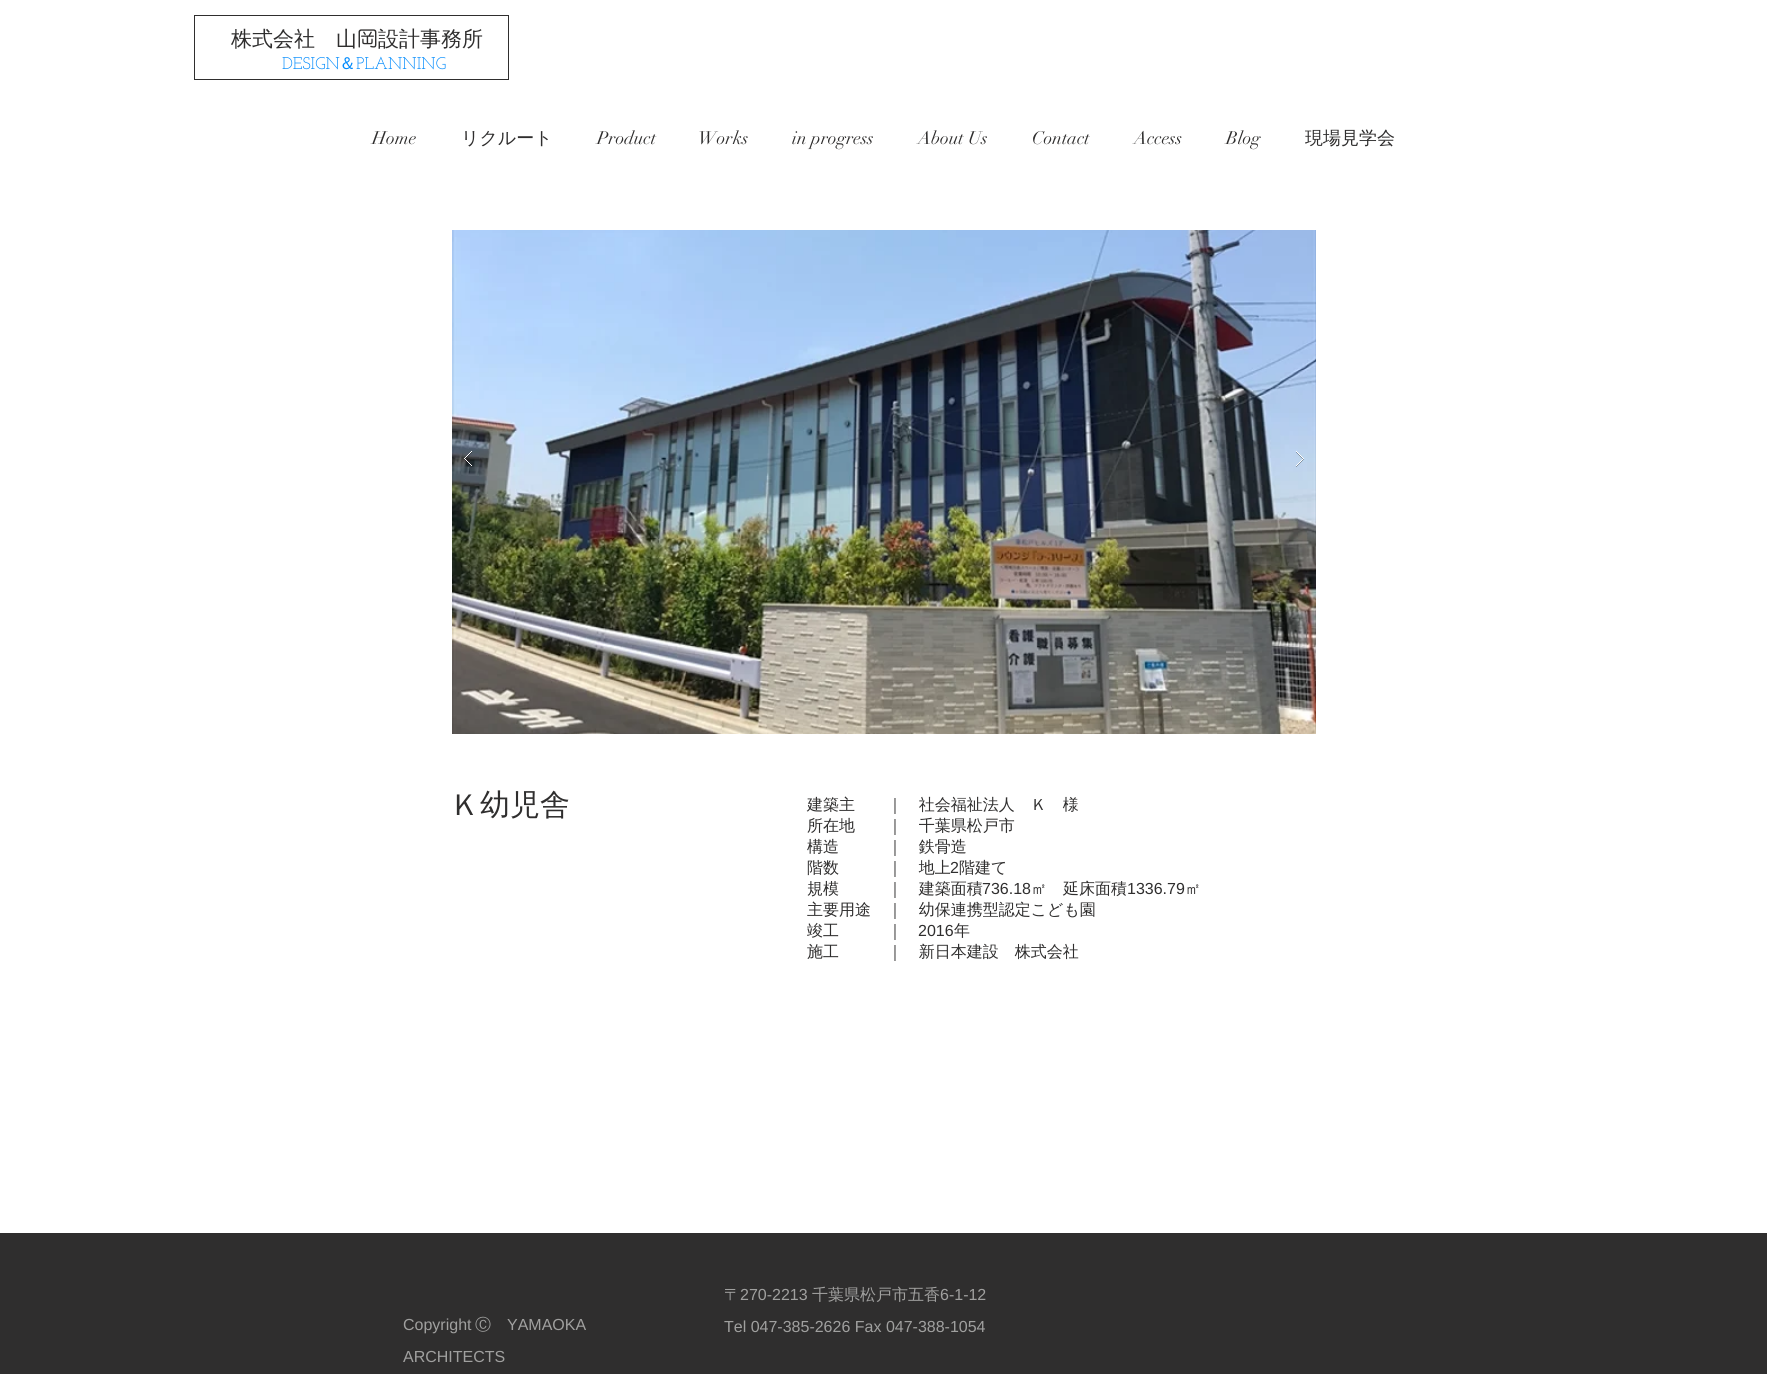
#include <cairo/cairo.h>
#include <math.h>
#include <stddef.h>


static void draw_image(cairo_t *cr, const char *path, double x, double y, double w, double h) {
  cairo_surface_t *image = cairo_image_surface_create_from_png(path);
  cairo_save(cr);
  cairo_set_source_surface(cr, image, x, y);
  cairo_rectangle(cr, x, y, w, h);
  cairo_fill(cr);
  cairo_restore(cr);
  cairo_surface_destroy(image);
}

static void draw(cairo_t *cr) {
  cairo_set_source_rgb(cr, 1, 1, 1);
  cairo_paint(cr);
  cairo_rectangle(cr, 194.5, 15.5, 314, 64);
  cairo_set_source_rgb(cr, 47 / 255.0, 46 / 255.0, 46 / 255.0);
  cairo_set_line_width(cr, 1);
  cairo_stroke(cr);
  draw_image(cr, "images/1.png", 452, 230, 864, 504);
  draw_image(cr, "images/2.png", 464, 451, 8, 16);
  draw_image(cr, "images/3.png", 1296, 451, 8, 16);
  cairo_rectangle(cr, 0, 1233, 1767, 141);
  cairo_fill(cr);
  cairo_select_font_face(cr, "WenQuanYi Zen Hei Medium", CAIRO_FONT_SLANT_NORMAL, CAIRO_FONT_WEIGHT_NORMAL);
  cairo_set_font_size(cr, 21);
  cairo_move_to(cr, 231, 46);
  cairo_show_text(cr, "株式会社　山");
  cairo_select_font_face(cr, "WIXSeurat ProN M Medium", CAIRO_FONT_SLANT_NORMAL, CAIRO_FONT_WEIGHT_NORMAL);
  cairo_move_to(cr, 357, 46);
  cairo_show_text(cr, "岡");
  cairo_select_font_face(cr, "WenQuanYi Zen Hei Medium", CAIRO_FONT_SLANT_NORMAL, CAIRO_FONT_WEIGHT_NORMAL);
  cairo_move_to(cr, 378, 46);
  cairo_show_text(cr, "設計事務所");
  cairo_select_font_face(cr, "Josefin Slab", CAIRO_FONT_SLANT_NORMAL, CAIRO_FONT_WEIGHT_NORMAL);
  cairo_set_font_size(cr, 17);
  cairo_set_source_rgb(cr, 0, 138 / 255.0, 252 / 255.0);
  cairo_move_to(cr, 282, 69);
  cairo_show_text(cr, "DESIGN");
  cairo_select_font_face(cr, "WenQuanYi Zen Hei Medium", CAIRO_FONT_SLANT_NORMAL, CAIRO_FONT_WEIGHT_NORMAL);
  cairo_move_to(cr, 339, 69);
  cairo_show_text(cr, "＆");
  cairo_select_font_face(cr, "Josefin Slab", CAIRO_FONT_SLANT_NORMAL, CAIRO_FONT_WEIGHT_NORMAL);
  cairo_move_to(cr, 356, 69);
  cairo_show_text(cr, "PLANNING");
  cairo_select_font_face(cr, "didot", CAIRO_FONT_SLANT_NORMAL, CAIRO_FONT_WEIGHT_NORMAL);
  cairo_set_font_size(cr, 18);
  cairo_set_source_rgb(cr, 47 / 255.0, 46 / 255.0, 46 / 255.0);
  cairo_move_to(cr, 372, 144);
  cairo_show_text(cr, "Home");
  cairo_select_font_face(cr, "WenQuanYi Zen Hei Medium", CAIRO_FONT_SLANT_NORMAL, CAIRO_FONT_WEIGHT_NORMAL);
  cairo_move_to(cr, 461, 144);
  cairo_show_text(cr, "リクルート");
  cairo_select_font_face(cr, "didot", CAIRO_FONT_SLANT_NORMAL, CAIRO_FONT_WEIGHT_NORMAL);
  cairo_move_to(cr, 597, 144);
  cairo_show_text(cr, "Product");
  cairo_move_to(cr, 698, 144);
  cairo_show_text(cr, "Works");
  cairo_move_to(cr, 792, 144);
  cairo_show_text(cr, "in progress");
  cairo_move_to(cr, 918, 144);
  cairo_show_text(cr, "About Us");
  cairo_move_to(cr, 1032, 144);
  cairo_show_text(cr, "Contact");
  cairo_move_to(cr, 1134, 144);
  cairo_show_text(cr, "Access");
  cairo_move_to(cr, 1226, 144);
  cairo_show_text(cr, "Blog");
  cairo_select_font_face(cr, "WenQuanYi Zen Hei Medium", CAIRO_FONT_SLANT_NORMAL, CAIRO_FONT_WEIGHT_NORMAL);
  cairo_move_to(cr, 1305, 144);
  cairo_show_text(cr, "現場見学会");
  cairo_set_font_size(cr, 30);
  cairo_move_to(cr, 450, 815);
  cairo_show_text(cr, "Ｋ幼児舎");
  cairo_set_font_size(cr, 16);
  cairo_move_to(cr, 807, 810);
  cairo_show_text(cr, "建築主　　｜　社会福祉法人　Ｋ　様");
  cairo_move_to(cr, 807, 831);
  cairo_show_text(cr, "所在地　　｜　千葉県松戸市");
  cairo_move_to(cr, 807, 852);
  cairo_show_text(cr, "構造　　　｜　鉄骨造");
  cairo_move_to(cr, 807, 873);
  cairo_show_text(cr, "階数　　　｜　地上");
  cairo_select_font_face(cr, "Liberation Sans", CAIRO_FONT_SLANT_NORMAL, CAIRO_FONT_WEIGHT_NORMAL);
  cairo_move_to(cr, 950, 873);
  cairo_show_text(cr, "2");
  cairo_select_font_face(cr, "WenQuanYi Zen Hei Medium", CAIRO_FONT_SLANT_NORMAL, CAIRO_FONT_WEIGHT_NORMAL);
  cairo_move_to(cr, 959, 873);
  cairo_show_text(cr, "階建て");
  cairo_move_to(cr, 807, 894);
  cairo_show_text(cr, "規模　　　｜　建築面積");
  cairo_select_font_face(cr, "Liberation Sans", CAIRO_FONT_SLANT_NORMAL, CAIRO_FONT_WEIGHT_NORMAL);
  cairo_move_to(cr, 982, 894);
  cairo_show_text(cr, "736.18");
  cairo_select_font_face(cr, "WenQuanYi Zen Hei Medium", CAIRO_FONT_SLANT_NORMAL, CAIRO_FONT_WEIGHT_NORMAL);
  cairo_move_to(cr, 1031, 894);
  cairo_show_text(cr, "㎡　延床面積");
  cairo_select_font_face(cr, "Liberation Sans", CAIRO_FONT_SLANT_NORMAL, CAIRO_FONT_WEIGHT_NORMAL);
  cairo_move_to(cr, 1127, 894);
  cairo_show_text(cr, "1336.79");
  cairo_select_font_face(cr, "WenQuanYi Zen Hei Medium", CAIRO_FONT_SLANT_NORMAL, CAIRO_FONT_WEIGHT_NORMAL);
  cairo_move_to(cr, 1185, 894);
  cairo_show_text(cr, "㎡");
  cairo_move_to(cr, 807, 915);
  cairo_show_text(cr, "主要用途　｜　幼保連携型認定こども園");
  cairo_move_to(cr, 807, 936);
  cairo_show_text(cr, "竣工　　　｜");
  cairo_select_font_face(cr, "Liberation Sans", CAIRO_FONT_SLANT_NORMAL, CAIRO_FONT_WEIGHT_NORMAL);
  cairo_move_to(cr, 918, 936);
  cairo_show_text(cr, "2016");
  cairo_select_font_face(cr, "WenQuanYi Zen Hei Medium", CAIRO_FONT_SLANT_NORMAL, CAIRO_FONT_WEIGHT_NORMAL);
  cairo_move_to(cr, 954, 936);
  cairo_show_text(cr, "年");
  cairo_move_to(cr, 807, 957);
  cairo_show_text(cr, "施工　　　｜　新日本建設　株式会社");
  cairo_set_source_rgb(cr, 160 / 255.0, 160 / 255.0, 159 / 255.0);
  cairo_move_to(cr, 724, 1300);
  cairo_show_text(cr, "〒");
  cairo_select_font_face(cr, "Liberation Sans", CAIRO_FONT_SLANT_NORMAL, CAIRO_FONT_WEIGHT_NORMAL);
  cairo_move_to(cr, 740, 1300);
  cairo_show_text(cr, "270-2213");
  cairo_select_font_face(cr, "WenQuanYi Zen Hei Medium", CAIRO_FONT_SLANT_NORMAL, CAIRO_FONT_WEIGHT_NORMAL);
  cairo_move_to(cr, 812, 1300);
  cairo_show_text(cr, "千葉県松戸市五香");
  cairo_select_font_face(cr, "Liberation Sans", CAIRO_FONT_SLANT_NORMAL, CAIRO_FONT_WEIGHT_NORMAL);
  cairo_move_to(cr, 940, 1300);
  cairo_show_text(cr, "6-1-12");
  cairo_move_to(cr, 724, 1332);
  cairo_show_text(cr, "Tel 047-385-2626 Fax 047-388-1054");
  cairo_move_to(cr, 403, 1330);
  cairo_show_text(cr, "Copyright");
  cairo_select_font_face(cr, "WenQuanYi Zen Hei Medium", CAIRO_FONT_SLANT_NORMAL, CAIRO_FONT_WEIGHT_NORMAL);
  cairo_move_to(cr, 475, 1330);
  cairo_show_text(cr, "Ⓒ");
  cairo_select_font_face(cr, "Liberation Sans", CAIRO_FONT_SLANT_NORMAL, CAIRO_FONT_WEIGHT_NORMAL);
  cairo_move_to(cr, 507, 1330);
  cairo_show_text(cr, "YAMAOKA");
  cairo_move_to(cr, 403, 1362);
  cairo_show_text(cr, "ARCHITECTS");
}

int main(void) {
  cairo_surface_t *surface = cairo_image_surface_create(CAIRO_FORMAT_RGB24, 1767, 1374);
  cairo_t *cr = cairo_create(surface);
  cairo_font_options_t *options = cairo_font_options_create();
  cairo_font_options_set_hint_metrics(options, CAIRO_HINT_METRICS_OFF);
  cairo_font_options_set_hint_style(options, CAIRO_HINT_STYLE_NONE);
  cairo_set_font_options(cr, options);
  cairo_set_miter_limit(cr, 4);
  draw(cr);
  cairo_surface_write_to_png(surface, "out.png");
  cairo_font_options_destroy(options);
  cairo_destroy(cr);
  cairo_surface_destroy(surface);
  return 0;
}
